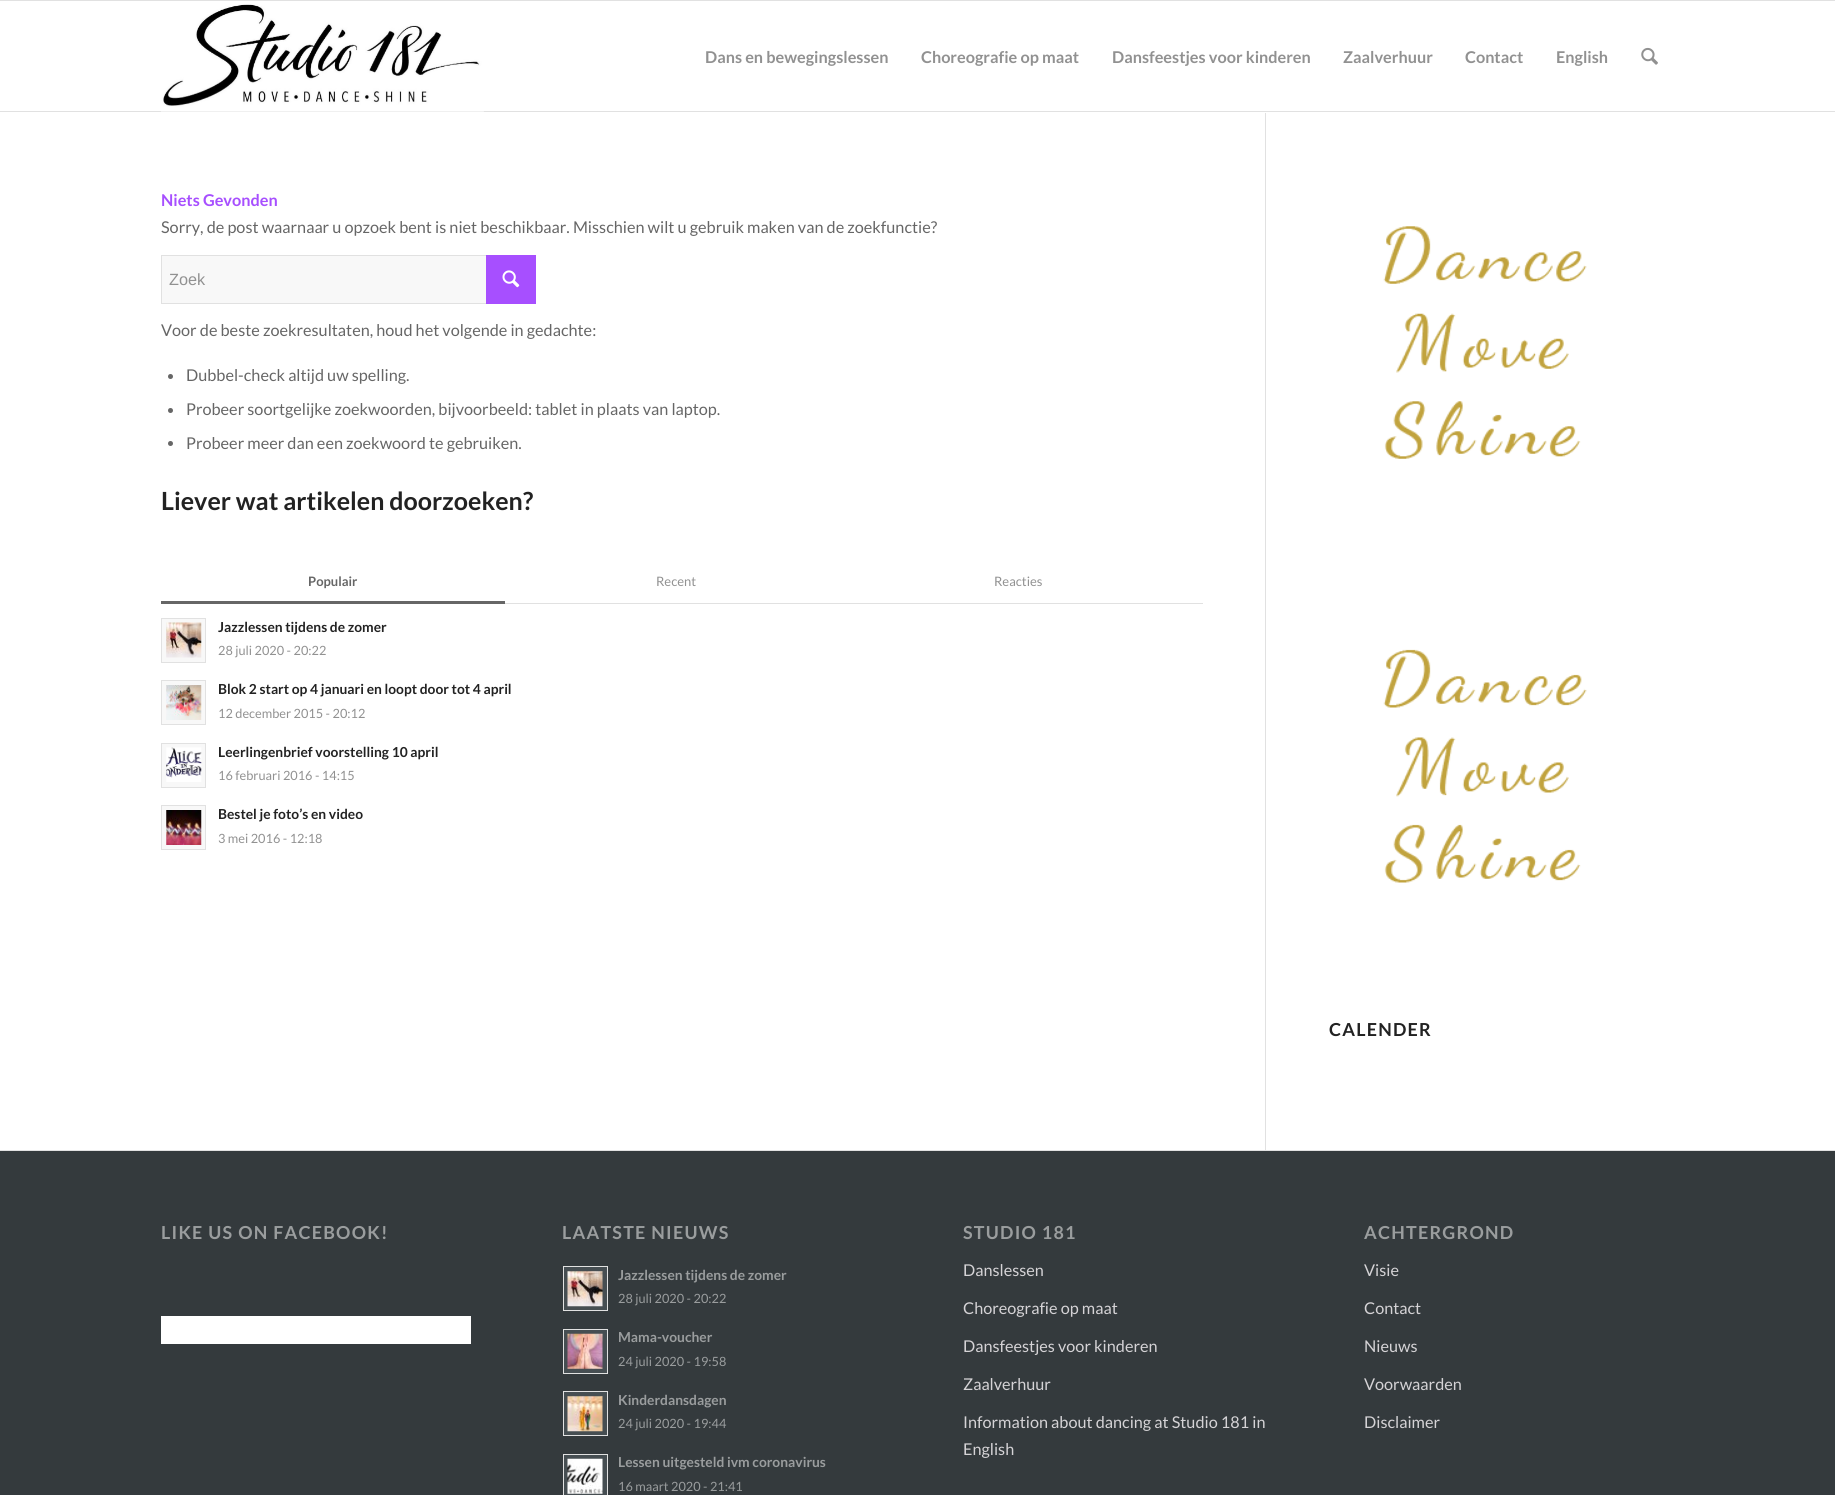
#include <cairo/cairo.h>
#include <math.h>
#include <stddef.h>


static void draw_spaced(cairo_t *cr, double x, double y, const char *s, double letter, double word) {
  cairo_move_to(cr, x, y);
  while (*s) {
    char ch[5] = {0};
    int n = 0;
    do ch[n++] = *s++; while ((*s & 0xC0) == 0x80);
    cairo_show_text(cr, ch);
    cairo_rel_move_to(cr, letter + word * (*ch == ' '), 0);
  }
}

static void draw_image(cairo_t *cr, const char *path, double x, double y, double w, double h) {
  cairo_surface_t *image = cairo_image_surface_create_from_png(path);
  cairo_save(cr);
  cairo_set_source_surface(cr, image, x, y);
  cairo_rectangle(cr, x, y, w, h);
  cairo_fill(cr);
  cairo_restore(cr);
  cairo_surface_destroy(image);
}

static void draw(cairo_t *cr) {
  cairo_set_source_rgb(cr, 1, 1, 1);
  cairo_paint(cr);
  cairo_set_source_rgb(cr, 225 / 255.0, 225 / 255.0, 225 / 255.0);
  cairo_rectangle(cr, 0, 0, 1835, 1);
  cairo_fill(cr);
  cairo_rectangle(cr, 1265, 111, 1, 1039);
  cairo_fill(cr);
  cairo_set_source_rgb(cr, 254 / 255.0, 254 / 255.0, 254 / 255.0);
  cairo_rectangle(cr, 1265, 111, 1, 2);
  cairo_fill(cr);
  cairo_set_source_rgb(cr, 225 / 255.0, 225 / 255.0, 225 / 255.0);
  cairo_rectangle(cr, 0, 111, 1835, 1);
  cairo_fill(cr);
  draw_image(cr, "images/1.png", 161, 4, 323, 108);
  draw_image(cr, "images/2.png", 1641, 47, 17, 18);
  cairo_set_source_rgb(cr, 248 / 255.0, 248 / 255.0, 248 / 255.0);
  cairo_rectangle(cr, 162, 256, 324, 47);
  cairo_fill(cr);
  cairo_rectangle(cr, 161.5, 255.5, 374, 48);
  cairo_set_source_rgb(cr, 225 / 255.0, 225 / 255.0, 225 / 255.0);
  cairo_set_line_width(cr, 1);
  cairo_stroke(cr);
  cairo_set_source_rgb(cr, 167 / 255.0, 79 / 255.0, 1);
  cairo_rectangle(cr, 486, 255, 50, 49);
  cairo_fill(cr);
  draw_image(cr, "images/3.png", 502, 270, 18, 18);
  cairo_set_source_rgb(cr, 102 / 255.0, 102 / 255.0, 102 / 255.0);
  cairo_arc(cr, 170.5, 376.5, 2.5, 0, 2 * M_PI);
  cairo_fill(cr);
  cairo_arc(cr, 170.5, 410.5, 2.5, 0, 2 * M_PI);
  cairo_fill(cr);
  cairo_arc(cr, 170.5, 443.5, 2.5, 0, 2 * M_PI);
  cairo_fill(cr);
  cairo_set_source_rgb(cr, 225 / 255.0, 225 / 255.0, 225 / 255.0);
  cairo_rectangle(cr, 505, 603, 698, 1);
  cairo_fill(cr);
  cairo_set_source_rgb(cr, 102 / 255.0, 102 / 255.0, 102 / 255.0);
  cairo_rectangle(cr, 161, 601, 344, 3);
  cairo_fill(cr);
  cairo_set_source_rgb(cr, 248 / 255.0, 248 / 255.0, 248 / 255.0);
  cairo_rectangle(cr, 161.5, 618.5, 44, 44);
  cairo_fill_preserve(cr);
  cairo_set_source_rgb(cr, 225 / 255.0, 225 / 255.0, 225 / 255.0);
  cairo_stroke(cr);
  draw_image(cr, "images/4.png", 166, 622, 36, 36);
  cairo_set_source_rgb(cr, 248 / 255.0, 248 / 255.0, 248 / 255.0);
  cairo_rectangle(cr, 161.5, 680.5, 44, 44);
  cairo_fill_preserve(cr);
  cairo_set_source_rgb(cr, 225 / 255.0, 225 / 255.0, 225 / 255.0);
  cairo_stroke(cr);
  draw_image(cr, "images/5.png", 166, 685, 36, 35);
  cairo_set_source_rgb(cr, 248 / 255.0, 248 / 255.0, 248 / 255.0);
  cairo_rectangle(cr, 161.5, 743.5, 44, 44);
  cairo_fill_preserve(cr);
  cairo_set_source_rgb(cr, 225 / 255.0, 225 / 255.0, 225 / 255.0);
  cairo_stroke(cr);
  draw_image(cr, "images/6.png", 166, 747, 36, 35);
  cairo_set_source_rgb(cr, 248 / 255.0, 248 / 255.0, 248 / 255.0);
  cairo_rectangle(cr, 161.5, 805.5, 44, 44);
  cairo_fill_preserve(cr);
  cairo_set_source_rgb(cr, 225 / 255.0, 225 / 255.0, 225 / 255.0);
  cairo_stroke(cr);
  draw_image(cr, "images/7.png", 166, 810, 36, 35);
  draw_image(cr, "images/8.png", 1383, 226, 204, 233);
  draw_image(cr, "images/9.png", 1383, 649, 204, 234);
  cairo_set_source_rgb(cr, 52 / 255.0, 58 / 255.0, 61 / 255.0);
  cairo_rectangle(cr, 0, 1151, 1835, 344);
  cairo_fill(cr);
  cairo_set_source_rgb(cr, 225 / 255.0, 225 / 255.0, 225 / 255.0);
  cairo_rectangle(cr, 0, 1150, 1835, 1);
  cairo_fill(cr);
  cairo_set_source_rgb(cr, 1, 1, 1);
  cairo_rectangle(cr, 161, 1316, 310, 28);
  cairo_fill(cr);
  cairo_set_source_rgb(cr, 70 / 255.0, 78 / 255.0, 82 / 255.0);
  cairo_rectangle(cr, 563.5, 1266.5, 44, 44);
  cairo_fill_preserve(cr);
  cairo_set_source_rgb(cr, 225 / 255.0, 225 / 255.0, 225 / 255.0);
  cairo_stroke(cr);
  draw_image(cr, "images/10.png", 567, 1271, 36, 36);
  cairo_set_source_rgb(cr, 70 / 255.0, 78 / 255.0, 82 / 255.0);
  cairo_rectangle(cr, 563.5, 1329.5, 44, 44);
  cairo_fill_preserve(cr);
  cairo_set_source_rgb(cr, 225 / 255.0, 225 / 255.0, 225 / 255.0);
  cairo_stroke(cr);
  draw_image(cr, "images/11.png", 567, 1333, 36, 36);
  cairo_set_source_rgb(cr, 70 / 255.0, 78 / 255.0, 82 / 255.0);
  cairo_rectangle(cr, 563.5, 1391.5, 44, 44);
  cairo_fill_preserve(cr);
  cairo_set_source_rgb(cr, 225 / 255.0, 225 / 255.0, 225 / 255.0);
  cairo_stroke(cr);
  draw_image(cr, "images/12.png", 567, 1396, 36, 36);
  cairo_set_source_rgb(cr, 70 / 255.0, 78 / 255.0, 82 / 255.0);
  cairo_rectangle(cr, 563.5, 1454.5, 44, 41);
  cairo_fill_preserve(cr);
  cairo_set_source_rgb(cr, 225 / 255.0, 225 / 255.0, 225 / 255.0);
  cairo_stroke(cr);
  draw_image(cr, "images/13.png", 567, 1458, 36, 36);
  cairo_select_font_face(cr, "Lato", CAIRO_FONT_SLANT_NORMAL, CAIRO_FONT_WEIGHT_BOLD);
  cairo_set_font_size(cr, 16.25);
  cairo_set_source_rgb(cr, 145 / 255.0, 145 / 255.0, 145 / 255.0);
  cairo_move_to(cr, 705, 63);
  cairo_show_text(cr, "Dans en bewegingslessen");
  cairo_move_to(cr, 921, 63);
  cairo_show_text(cr, "Choreografie op maat");
  cairo_move_to(cr, 1112, 63);
  cairo_show_text(cr, "Dansfeestjes voor kinderen");
  cairo_move_to(cr, 1343, 63);
  cairo_show_text(cr, "Zaalverhuur");
  cairo_move_to(cr, 1465, 63);
  cairo_show_text(cr, "Contact");
  cairo_move_to(cr, 1556, 63);
  cairo_show_text(cr, "English");
  cairo_set_source_rgb(cr, 167 / 255.0, 79 / 255.0, 1);
  cairo_move_to(cr, 161, 206);
  cairo_show_text(cr, "Niets Gevonden");
  cairo_select_font_face(cr, "Lato", CAIRO_FONT_SLANT_NORMAL, CAIRO_FONT_WEIGHT_NORMAL);
  cairo_set_source_rgb(cr, 102 / 255.0, 102 / 255.0, 102 / 255.0);
  cairo_move_to(cr, 161, 233);
  cairo_show_text(cr, "Sorry, de post waarnaar u opzoek bent is niet beschikbaar. Misschien wilt u gebruik maken van de zoekfunctie?");
  cairo_select_font_face(cr, "Liberation Sans", CAIRO_FONT_SLANT_NORMAL, CAIRO_FONT_WEIGHT_NORMAL);
  cairo_set_source_rgb(cr, 145 / 255.0, 145 / 255.0, 145 / 255.0);
  cairo_move_to(cr, 169, 285);
  cairo_show_text(cr, "Zoek");
  cairo_select_font_face(cr, "Lato", CAIRO_FONT_SLANT_NORMAL, CAIRO_FONT_WEIGHT_NORMAL);
  cairo_set_source_rgb(cr, 102 / 255.0, 102 / 255.0, 102 / 255.0);
  cairo_move_to(cr, 161, 336);
  cairo_show_text(cr, "Voor de beste zoekresultaten, houd het volgende in gedachte:");
  cairo_move_to(cr, 186, 381);
  cairo_show_text(cr, "Dubbel-check altijd uw spelling.");
  cairo_move_to(cr, 186, 415);
  cairo_show_text(cr, "Probeer soortgelijke zoekwoorden, bijvoorbeeld: tablet in plaats van laptop.");
  cairo_move_to(cr, 186, 449);
  cairo_show_text(cr, "Probeer meer dan een zoekwoord te gebruiken.");
  cairo_select_font_face(cr, "Lato", CAIRO_FONT_SLANT_NORMAL, CAIRO_FONT_WEIGHT_BOLD);
  cairo_set_font_size(cr, 25);
  cairo_set_source_rgb(cr, 34 / 255.0, 34 / 255.0, 34 / 255.0);
  cairo_move_to(cr, 161, 510);
  cairo_show_text(cr, "Liever wat artikelen doorzoeken?");
  cairo_set_font_size(cr, 13);
  cairo_set_source_rgb(cr, 102 / 255.0, 102 / 255.0, 102 / 255.0);
  cairo_move_to(cr, 308, 586);
  cairo_show_text(cr, "Populair");
  cairo_select_font_face(cr, "Lato", CAIRO_FONT_SLANT_NORMAL, CAIRO_FONT_WEIGHT_NORMAL);
  cairo_set_source_rgb(cr, 145 / 255.0, 145 / 255.0, 145 / 255.0);
  cairo_move_to(cr, 656, 586);
  cairo_show_text(cr, "Recent");
  cairo_move_to(cr, 994, 586);
  cairo_show_text(cr, "Reacties");
  cairo_select_font_face(cr, "Lato", CAIRO_FONT_SLANT_NORMAL, CAIRO_FONT_WEIGHT_BOLD);
  cairo_set_font_size(cr, 13.8);
  cairo_set_source_rgb(cr, 34 / 255.0, 34 / 255.0, 34 / 255.0);
  cairo_move_to(cr, 218, 632);
  cairo_show_text(cr, "Jazzlessen tijdens de zomer");
  cairo_select_font_face(cr, "Lato", CAIRO_FONT_SLANT_NORMAL, CAIRO_FONT_WEIGHT_NORMAL);
  cairo_set_font_size(cr, 12.75);
  cairo_set_source_rgb(cr, 145 / 255.0, 145 / 255.0, 145 / 255.0);
  cairo_move_to(cr, 218, 655);
  cairo_show_text(cr, "28 juli 2020 - 20:22");
  cairo_select_font_face(cr, "Lato", CAIRO_FONT_SLANT_NORMAL, CAIRO_FONT_WEIGHT_BOLD);
  cairo_set_font_size(cr, 13.8);
  cairo_set_source_rgb(cr, 34 / 255.0, 34 / 255.0, 34 / 255.0);
  cairo_move_to(cr, 218, 694);
  cairo_show_text(cr, "Blok 2 start op 4 januari en loopt door tot 4 april");
  cairo_select_font_face(cr, "Lato", CAIRO_FONT_SLANT_NORMAL, CAIRO_FONT_WEIGHT_NORMAL);
  cairo_set_font_size(cr, 12.75);
  cairo_set_source_rgb(cr, 145 / 255.0, 145 / 255.0, 145 / 255.0);
  cairo_move_to(cr, 218, 718);
  cairo_show_text(cr, "12 december 2015 - 20:12");
  cairo_select_font_face(cr, "Lato", CAIRO_FONT_SLANT_NORMAL, CAIRO_FONT_WEIGHT_BOLD);
  cairo_set_font_size(cr, 13.8);
  cairo_set_source_rgb(cr, 34 / 255.0, 34 / 255.0, 34 / 255.0);
  cairo_move_to(cr, 218, 757);
  cairo_show_text(cr, "Leerlingenbrief voorstelling 10 april");
  cairo_select_font_face(cr, "Lato", CAIRO_FONT_SLANT_NORMAL, CAIRO_FONT_WEIGHT_NORMAL);
  cairo_set_font_size(cr, 12.75);
  cairo_set_source_rgb(cr, 145 / 255.0, 145 / 255.0, 145 / 255.0);
  cairo_move_to(cr, 218, 780);
  cairo_show_text(cr, "16 februari 2016 - 14:15");
  cairo_select_font_face(cr, "Lato", CAIRO_FONT_SLANT_NORMAL, CAIRO_FONT_WEIGHT_BOLD);
  cairo_set_font_size(cr, 13.8);
  cairo_set_source_rgb(cr, 34 / 255.0, 34 / 255.0, 34 / 255.0);
  cairo_move_to(cr, 218, 819);
  cairo_show_text(cr, "Bestel je foto’s en video");
  cairo_select_font_face(cr, "Lato", CAIRO_FONT_SLANT_NORMAL, CAIRO_FONT_WEIGHT_NORMAL);
  cairo_set_font_size(cr, 12.75);
  cairo_set_source_rgb(cr, 145 / 255.0, 145 / 255.0, 145 / 255.0);
  cairo_move_to(cr, 218, 843);
  cairo_show_text(cr, "3 mei 2016 - 12:18");
  cairo_select_font_face(cr, "Lato", CAIRO_FONT_SLANT_NORMAL, CAIRO_FONT_WEIGHT_BOLD);
  cairo_set_font_size(cr, 17.9);
  cairo_set_source_rgb(cr, 34 / 255.0, 34 / 255.0, 34 / 255.0);
  draw_spaced(cr, 1329, 1036, "CALENDER", 1.25, 0);
  cairo_set_source_rgb(cr, 154 / 255.0, 157 / 255.0, 158 / 255.0);
  draw_spaced(cr, 161, 1239, "LIKE US ON FACEBOOK!", 1.25, 0);
  draw_spaced(cr, 562, 1239, "LAATSTE NIEUWS", 1.25, 0);
  cairo_set_font_size(cr, 13.8);
  cairo_move_to(cr, 618, 1280);
  cairo_show_text(cr, "Jazzlessen tijdens de zomer");
  cairo_select_font_face(cr, "Lato", CAIRO_FONT_SLANT_NORMAL, CAIRO_FONT_WEIGHT_NORMAL);
  cairo_set_font_size(cr, 12.75);
  cairo_move_to(cr, 618, 1303);
  cairo_show_text(cr, "28 juli 2020 - 20:22");
  cairo_select_font_face(cr, "Lato", CAIRO_FONT_SLANT_NORMAL, CAIRO_FONT_WEIGHT_BOLD);
  cairo_set_font_size(cr, 13.8);
  cairo_move_to(cr, 618, 1342);
  cairo_show_text(cr, "Mama-voucher");
  cairo_select_font_face(cr, "Lato", CAIRO_FONT_SLANT_NORMAL, CAIRO_FONT_WEIGHT_NORMAL);
  cairo_set_font_size(cr, 12.75);
  cairo_move_to(cr, 618, 1366);
  cairo_show_text(cr, "24 juli 2020 - 19:58");
  cairo_select_font_face(cr, "Lato", CAIRO_FONT_SLANT_NORMAL, CAIRO_FONT_WEIGHT_BOLD);
  cairo_set_font_size(cr, 13.8);
  cairo_move_to(cr, 618, 1405);
  cairo_show_text(cr, "Kinderdansdagen");
  cairo_select_font_face(cr, "Lato", CAIRO_FONT_SLANT_NORMAL, CAIRO_FONT_WEIGHT_NORMAL);
  cairo_set_font_size(cr, 12.75);
  cairo_move_to(cr, 618, 1428);
  cairo_show_text(cr, "24 juli 2020 - 19:44");
  cairo_select_font_face(cr, "Lato", CAIRO_FONT_SLANT_NORMAL, CAIRO_FONT_WEIGHT_BOLD);
  cairo_set_font_size(cr, 13.8);
  cairo_move_to(cr, 618, 1467);
  cairo_show_text(cr, "Lessen uitgesteld ivm coronavirus");
  cairo_select_font_face(cr, "Lato", CAIRO_FONT_SLANT_NORMAL, CAIRO_FONT_WEIGHT_NORMAL);
  cairo_set_font_size(cr, 12.75);
  cairo_move_to(cr, 618, 1491);
  cairo_show_text(cr, "16 maart 2020 - 21:41");
  cairo_select_font_face(cr, "Lato", CAIRO_FONT_SLANT_NORMAL, CAIRO_FONT_WEIGHT_BOLD);
  cairo_set_font_size(cr, 17.9);
  draw_spaced(cr, 963, 1239, "STUDIO 181", 1.25, 0);
  cairo_select_font_face(cr, "Lato", CAIRO_FONT_SLANT_NORMAL, CAIRO_FONT_WEIGHT_NORMAL);
  cairo_set_font_size(cr, 16.25);
  cairo_set_source_rgb(cr, 213 / 255.0, 211 / 255.0, 214 / 255.0);
  cairo_move_to(cr, 963, 1276);
  cairo_show_text(cr, "Danslessen");
  cairo_move_to(cr, 963, 1314);
  cairo_show_text(cr, "Choreografie op maat");
  cairo_move_to(cr, 963, 1352);
  cairo_show_text(cr, "Dansfeestjes voor kinderen");
  cairo_move_to(cr, 963, 1390);
  cairo_show_text(cr, "Zaalverhuur");
  cairo_move_to(cr, 963, 1428);
  cairo_show_text(cr, "Information about dancing at Studio 181 in");
  cairo_move_to(cr, 963, 1455);
  cairo_show_text(cr, "English");
  cairo_select_font_face(cr, "Lato", CAIRO_FONT_SLANT_NORMAL, CAIRO_FONT_WEIGHT_BOLD);
  cairo_set_font_size(cr, 17.9);
  cairo_set_source_rgb(cr, 154 / 255.0, 157 / 255.0, 158 / 255.0);
  draw_spaced(cr, 1364, 1239, "ACHTERGROND", 1.25, 0);
  cairo_select_font_face(cr, "Lato", CAIRO_FONT_SLANT_NORMAL, CAIRO_FONT_WEIGHT_NORMAL);
  cairo_set_font_size(cr, 16.25);
  cairo_set_source_rgb(cr, 213 / 255.0, 211 / 255.0, 214 / 255.0);
  cairo_move_to(cr, 1364, 1276);
  cairo_show_text(cr, "Visie");
  cairo_move_to(cr, 1364, 1314);
  cairo_show_text(cr, "Contact");
  cairo_move_to(cr, 1364, 1352);
  cairo_show_text(cr, "Nieuws");
  cairo_move_to(cr, 1364, 1390);
  cairo_show_text(cr, "Voorwaarden");
  cairo_move_to(cr, 1364, 1428);
  cairo_show_text(cr, "Disclaimer");
}

int main(void) {
  cairo_surface_t *surface = cairo_image_surface_create(CAIRO_FORMAT_RGB24, 1835, 1495);
  cairo_t *cr = cairo_create(surface);
  cairo_font_options_t *options = cairo_font_options_create();
  cairo_font_options_set_hint_metrics(options, CAIRO_HINT_METRICS_OFF);
  cairo_font_options_set_hint_style(options, CAIRO_HINT_STYLE_NONE);
  cairo_set_font_options(cr, options);
  cairo_set_miter_limit(cr, 4);
  draw(cr);
  cairo_surface_write_to_png(surface, "out.png");
  cairo_font_options_destroy(options);
  cairo_destroy(cr);
  cairo_surface_destroy(surface);
  return 0;
}
